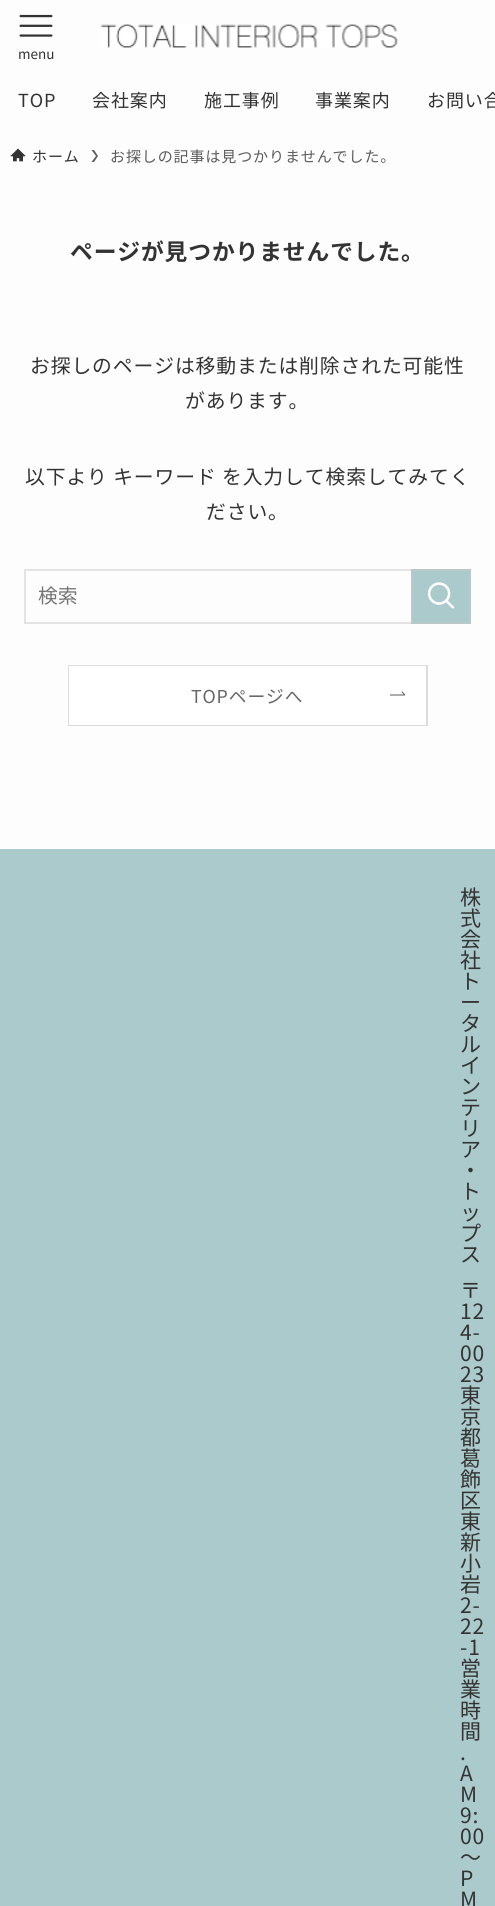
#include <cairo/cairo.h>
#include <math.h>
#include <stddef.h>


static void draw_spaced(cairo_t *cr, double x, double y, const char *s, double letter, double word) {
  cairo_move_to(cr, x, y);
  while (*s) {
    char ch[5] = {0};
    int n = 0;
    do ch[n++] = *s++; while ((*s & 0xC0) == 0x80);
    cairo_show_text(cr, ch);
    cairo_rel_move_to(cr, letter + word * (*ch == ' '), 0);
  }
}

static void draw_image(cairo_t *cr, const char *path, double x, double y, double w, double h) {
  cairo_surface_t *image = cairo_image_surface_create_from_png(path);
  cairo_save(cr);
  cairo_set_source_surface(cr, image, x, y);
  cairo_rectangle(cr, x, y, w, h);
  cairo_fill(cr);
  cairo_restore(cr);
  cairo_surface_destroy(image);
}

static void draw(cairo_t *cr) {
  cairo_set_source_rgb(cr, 253 / 255.0, 253 / 255.0, 253 / 255.0);
  cairo_paint(cr);
  draw_image(cr, "images/1.png", 100, 24, 298, 24);
  draw_image(cr, "images/2.png", 19, 14, 34, 23);
  draw_image(cr, "images/3.png", 10, 148, 16, 14);
  cairo_set_source_rgb(cr, 91 / 255.0, 91 / 255.0, 91 / 255.0);
  cairo_new_path(cr);
  cairo_move_to(cr, 94, 150);
  cairo_line_to(cr, 91.5, 150);
  cairo_line_to(cr, 96, 156);
  cairo_line_to(cr, 91.5, 162);
  cairo_line_to(cr, 94, 162);
  cairo_line_to(cr, 98, 156);
  cairo_close_path(cr);
  cairo_fill(cr);
  cairo_rectangle(cr, 25, 570, 445, 53);
  cairo_set_source_rgb(cr, 227 / 255.0, 227 / 255.0, 227 / 255.0);
  cairo_stroke(cr);
  cairo_set_source_rgb(cr, 171 / 255.0, 202 / 255.0, 204 / 255.0);
  cairo_rectangle(cr, 412, 570, 58, 53);
  cairo_fill_preserve(cr);
  cairo_set_source_rgb(cr, 185 / 255.0, 201 / 255.0, 202 / 255.0);
  cairo_stroke(cr);
  draw_image(cr, "images/4.png", 427, 582, 28, 27);
  cairo_rectangle(cr, 69, 666, 358, 59);
  cairo_set_source_rgb(cr, 220 / 255.0, 220 / 255.0, 220 / 255.0);
  cairo_stroke(cr);
  cairo_set_source_rgb(cr, 1, 1, 1);
  cairo_rectangle(cr, 69, 666, 357, 59);
  cairo_fill(cr);
  draw_image(cr, "images/5.png", 390, 691, 16, 5);
  cairo_set_source_rgb(cr, 171 / 255.0, 202 / 255.0, 204 / 255.0);
  cairo_rectangle(cr, 0, 849, 495, 1057);
  cairo_fill(cr);
  cairo_select_font_face(cr, "Noto Sans JP", CAIRO_FONT_SLANT_NORMAL, CAIRO_FONT_WEIGHT_NORMAL);
  cairo_set_font_size(cr, 13.5);
  cairo_set_source_rgb(cr, 51 / 255.0, 51 / 255.0, 51 / 255.0);
  cairo_move_to(cr, 18, 59);
  cairo_show_text(cr, "menu");
  cairo_set_font_size(cr, 18);
  draw_spaced(cr, 18, 107, "TOP", 0.9, 0);
  draw_spaced(cr, 92, 107, "会社案内", 0.9, 0);
  draw_spaced(cr, 204, 107, "施工事例", 0.9, 0);
  draw_spaced(cr, 315, 107, "事業案内", 0.9, 0);
  draw_spaced(cr, 427, 107, "お問い合", 0.9, 0);
  cairo_set_font_size(cr, 15);
  draw_spaced(cr, 32, 162, "ホーム", 0.9, 0);
  cairo_set_source_rgb(cr, 91 / 255.0, 91 / 255.0, 91 / 255.0);
  draw_spaced(cr, 110, 162, "お探しの記事は見つかりませんでした。", 0.9, 0);
  cairo_select_font_face(cr, "Noto Sans JP", CAIRO_FONT_SLANT_NORMAL, CAIRO_FONT_WEIGHT_BOLD);
  cairo_set_font_size(cr, 22.75);
  cairo_set_source_rgb(cr, 51 / 255.0, 51 / 255.0, 51 / 255.0);
  draw_spaced(cr, 70, 260, "ページが見つかりませんでした。", 0.9, 0);
  cairo_select_font_face(cr, "Noto Sans JP", CAIRO_FONT_SLANT_NORMAL, CAIRO_FONT_WEIGHT_NORMAL);
  cairo_set_font_size(cr, 19.8);
  draw_spaced(cr, 30, 373, "お探しのページは移動または削除された可能性", 0.9, 0);
  draw_spaced(cr, 185, 408, "があります。", 0.9, 0);
  draw_spaced(cr, 25, 484, "以下より キーワード を入力して検索してみてく", 0.9, 0);
  draw_spaced(cr, 206, 519, "ださい。", 0.9, 0);
  cairo_set_source_rgb(cr, 117 / 255.0, 117 / 255.0, 117 / 255.0);
  cairo_move_to(cr, 38, 603);
  cairo_show_text(cr, "検索");
  cairo_set_font_size(cr, 17.75);
  cairo_set_source_rgb(cr, 102 / 255.0, 102 / 255.0, 102 / 255.0);
  draw_spaced(cr, 191, 703, "TOPページへ", 0.9, 0);
  cairo_set_font_size(cr, 21);
  cairo_set_source_rgb(cr, 51 / 255.0, 51 / 255.0, 51 / 255.0);
  draw_spaced(cr, 460, 905, "株", 0.9, 0);
  draw_spaced(cr, 460, 926, "式", 0.9, 0);
  draw_spaced(cr, 460, 947, "会", 0.9, 0);
  draw_spaced(cr, 460, 968, "社", 0.9, 0);
  draw_spaced(cr, 460, 989, "ト", 0.9, 0);
  draw_spaced(cr, 460, 1010, "ー", 0.9, 0);
  draw_spaced(cr, 460, 1031, "タ", 0.9, 0);
  draw_spaced(cr, 460, 1052, "ル", 0.9, 0);
  draw_spaced(cr, 460, 1073, "イ", 0.9, 0);
  draw_spaced(cr, 460, 1094, "ン", 0.9, 0);
  draw_spaced(cr, 460, 1115, "テ", 0.9, 0);
  draw_spaced(cr, 460, 1136, "リ", 0.9, 0);
  draw_spaced(cr, 460, 1157, "ア", 0.9, 0);
  draw_spaced(cr, 460, 1178, "・", 0.9, 0);
  draw_spaced(cr, 460, 1199, "ト", 0.9, 0);
  draw_spaced(cr, 460, 1220, "ッ", 0.9, 0);
  draw_spaced(cr, 460, 1241, "プ", 0.9, 0);
  draw_spaced(cr, 460, 1262, "ス", 0.9, 0);
  draw_spaced(cr, 460, 1298, "〒", 0.9, 0);
  draw_spaced(cr, 460, 1319, "12", 0.9, 0);
  draw_spaced(cr, 460, 1340, "4-", 0.9, 0);
  draw_spaced(cr, 460, 1361, "00", 0.9, 0);
  draw_spaced(cr, 460, 1382, "23", 0.9, 0);
  draw_spaced(cr, 460, 1403, "東", 0.9, 0);
  draw_spaced(cr, 460, 1424, "京", 0.9, 0);
  draw_spaced(cr, 460, 1445, "都", 0.9, 0);
  draw_spaced(cr, 460, 1466, "葛", 0.9, 0);
  draw_spaced(cr, 460, 1487, "飾", 0.9, 0);
  draw_spaced(cr, 460, 1508, "区", 0.9, 0);
  draw_spaced(cr, 460, 1529, "東", 0.9, 0);
  draw_spaced(cr, 460, 1550, "新", 0.9, 0);
  draw_spaced(cr, 460, 1571, "小", 0.9, 0);
  draw_spaced(cr, 460, 1592, "岩", 0.9, 0);
  draw_spaced(cr, 460, 1613, "2-", 0.9, 0);
  draw_spaced(cr, 460, 1634, "22", 0.9, 0);
  draw_spaced(cr, 460, 1655, "-1", 0.9, 0);
  draw_spaced(cr, 460, 1676, "営", 0.9, 0);
  draw_spaced(cr, 460, 1697, "業", 0.9, 0);
  draw_spaced(cr, 460, 1718, "時", 0.9, 0);
  draw_spaced(cr, 460, 1739, "間", 0.9, 0);
  draw_spaced(cr, 460, 1760, ".", 0.9, 0);
  draw_spaced(cr, 460, 1781, "A", 0.9, 0);
  draw_spaced(cr, 460, 1802, "M", 0.9, 0);
  draw_spaced(cr, 460, 1823, "9:", 0.9, 0);
  draw_spaced(cr, 460, 1844, "00", 0.9, 0);
  draw_spaced(cr, 460, 1865, "～", 0.9, 0);
  draw_spaced(cr, 460, 1886, "P", 0.9, 0);
  draw_spaced(cr, 460, 1907, "M", 0.9, 0);
}

int main(void) {
  cairo_surface_t *surface = cairo_image_surface_create(CAIRO_FORMAT_RGB24, 495, 1906);
  cairo_t *cr = cairo_create(surface);
  cairo_font_options_t *options = cairo_font_options_create();
  cairo_font_options_set_hint_metrics(options, CAIRO_HINT_METRICS_OFF);
  cairo_font_options_set_hint_style(options, CAIRO_HINT_STYLE_NONE);
  cairo_set_font_options(cr, options);
  cairo_set_miter_limit(cr, 4);
  draw(cr);
  cairo_surface_write_to_png(surface, "out.png");
  cairo_font_options_destroy(options);
  cairo_destroy(cr);
  cairo_surface_destroy(surface);
  return 0;
}
